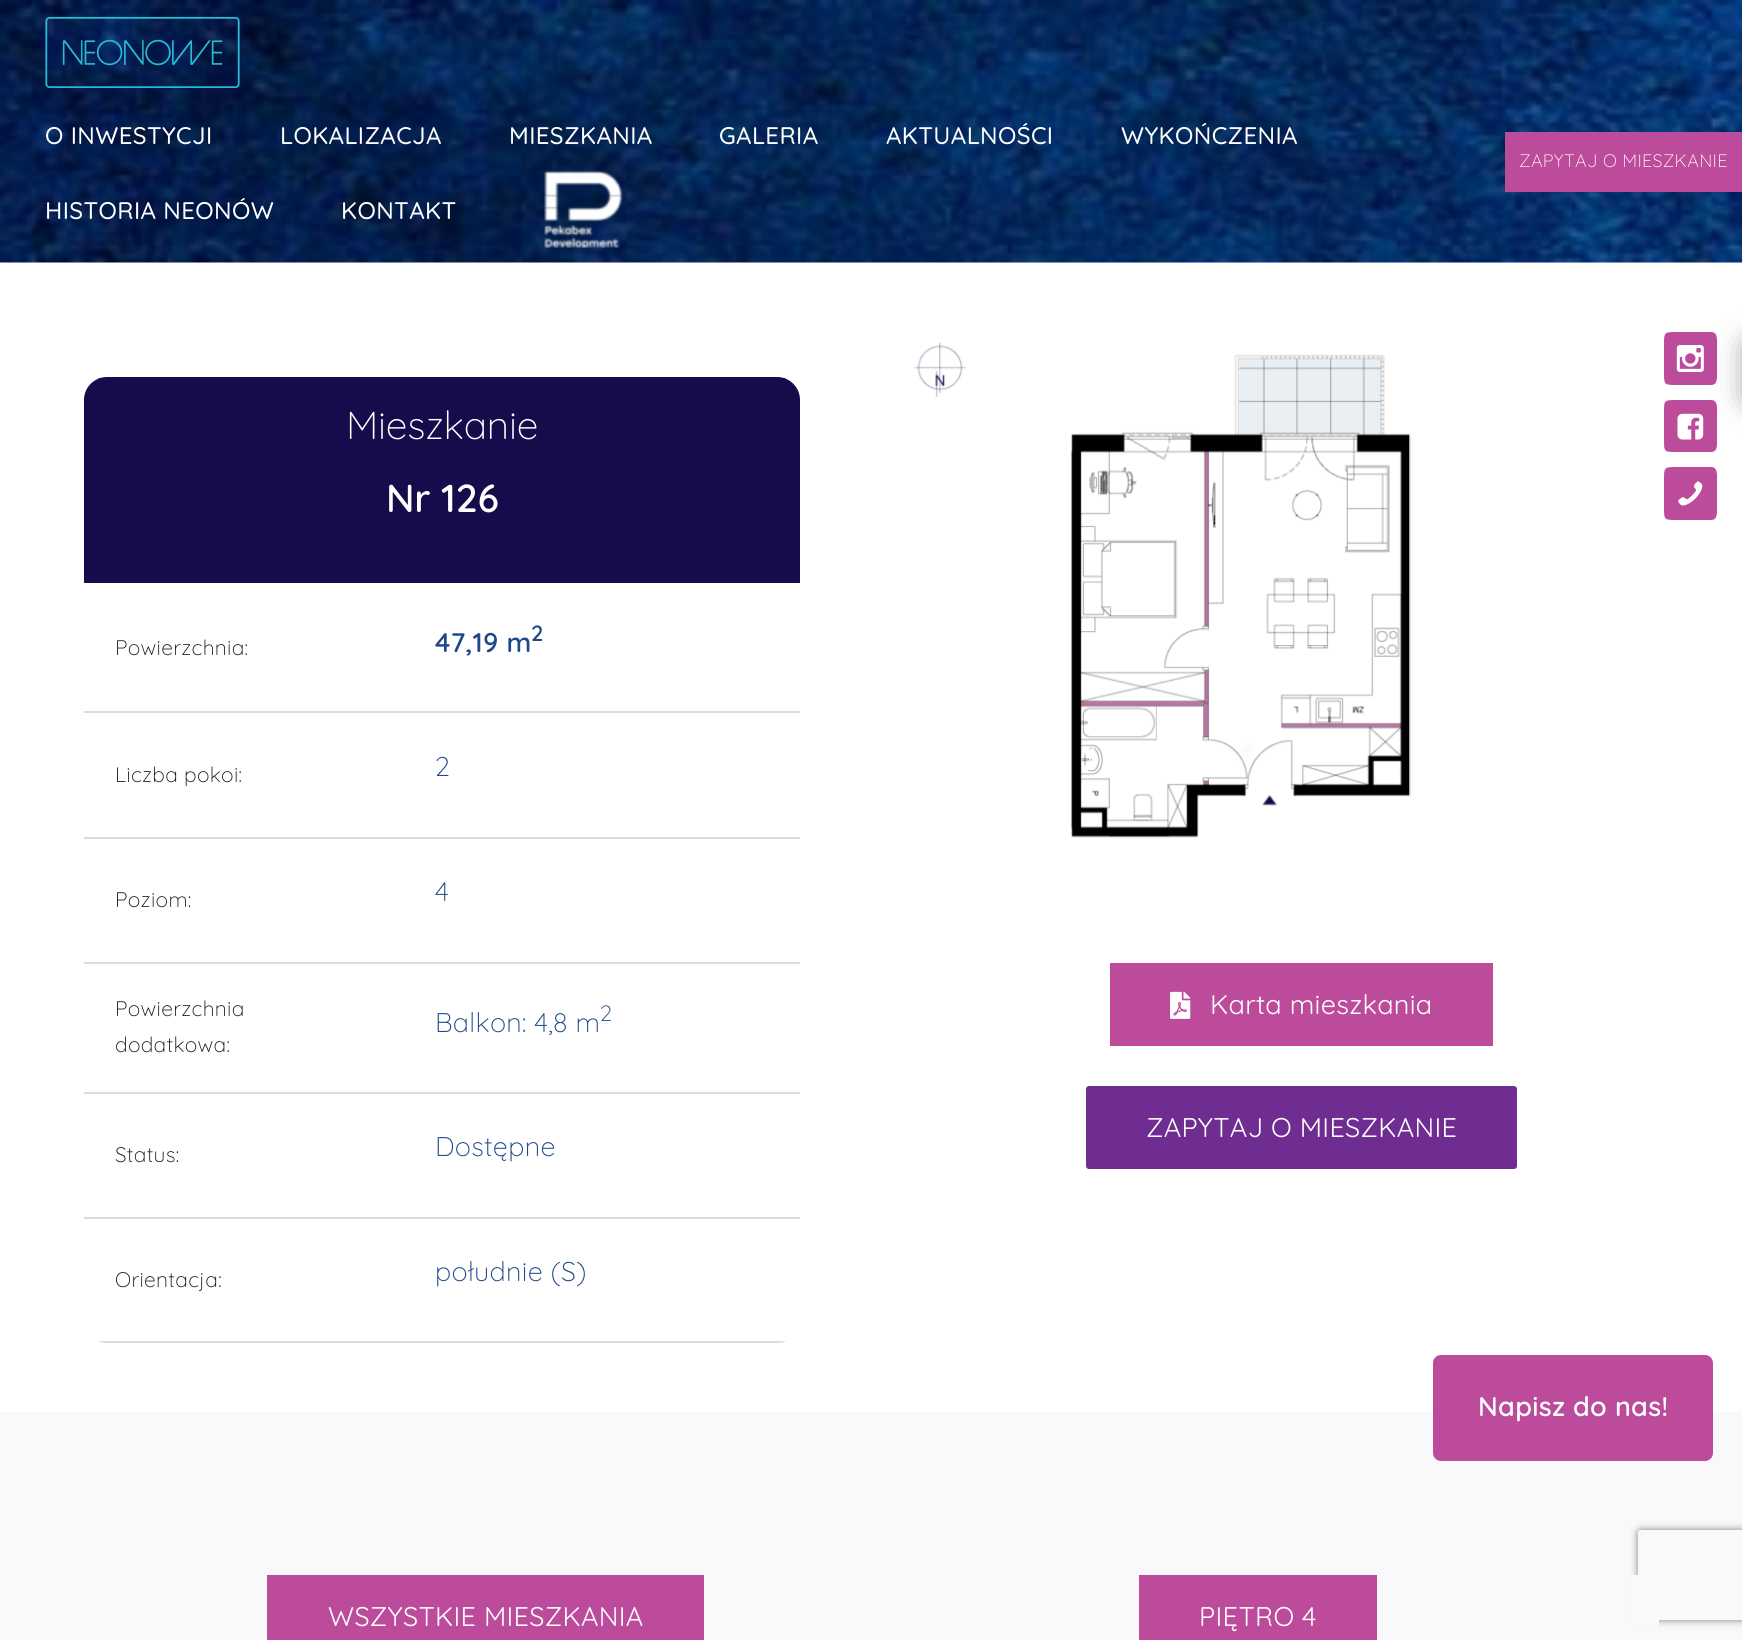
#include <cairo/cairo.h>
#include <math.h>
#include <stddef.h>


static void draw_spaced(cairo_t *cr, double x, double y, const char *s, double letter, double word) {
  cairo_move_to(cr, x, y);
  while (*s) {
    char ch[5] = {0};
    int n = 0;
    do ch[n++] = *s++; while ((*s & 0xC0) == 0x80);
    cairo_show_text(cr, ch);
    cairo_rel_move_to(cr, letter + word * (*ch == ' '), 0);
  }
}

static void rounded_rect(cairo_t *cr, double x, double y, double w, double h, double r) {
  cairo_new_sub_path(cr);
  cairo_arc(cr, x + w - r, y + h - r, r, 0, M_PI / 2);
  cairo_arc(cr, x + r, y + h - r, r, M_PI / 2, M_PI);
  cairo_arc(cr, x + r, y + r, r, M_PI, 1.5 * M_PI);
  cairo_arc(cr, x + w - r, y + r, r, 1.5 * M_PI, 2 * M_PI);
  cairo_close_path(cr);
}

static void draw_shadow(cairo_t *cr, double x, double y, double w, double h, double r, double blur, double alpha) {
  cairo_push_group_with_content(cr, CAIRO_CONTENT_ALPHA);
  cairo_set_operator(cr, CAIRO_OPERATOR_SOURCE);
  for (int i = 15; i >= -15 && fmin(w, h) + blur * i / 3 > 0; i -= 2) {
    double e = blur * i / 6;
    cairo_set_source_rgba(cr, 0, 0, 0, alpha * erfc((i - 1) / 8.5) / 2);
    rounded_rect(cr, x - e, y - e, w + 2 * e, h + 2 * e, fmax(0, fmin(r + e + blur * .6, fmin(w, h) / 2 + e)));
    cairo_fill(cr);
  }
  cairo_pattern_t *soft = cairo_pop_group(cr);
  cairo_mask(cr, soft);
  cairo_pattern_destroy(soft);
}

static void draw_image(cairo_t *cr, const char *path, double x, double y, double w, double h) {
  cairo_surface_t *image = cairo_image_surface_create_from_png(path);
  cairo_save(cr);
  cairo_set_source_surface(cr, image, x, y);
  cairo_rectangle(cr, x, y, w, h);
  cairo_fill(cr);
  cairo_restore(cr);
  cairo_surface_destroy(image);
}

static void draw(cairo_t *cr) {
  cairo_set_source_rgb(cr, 1, 1, 1);
  cairo_paint(cr);
  draw_image(cr, "images/1.png", 0, 0, 1742, 263);
  draw_image(cr, "images/2.png", 45, 16, 195, 72);
  draw_image(cr, "images/3.png", 544, 170, 79, 78);
  cairo_save(cr);
  rounded_rect(cr, 84, 377, 716, 966, 23);
  cairo_clip(cr);
  cairo_set_source_rgb(cr, 22 / 255.0, 12 / 255.0, 75 / 255.0);
  cairo_rectangle(cr, 86, 378, 712, 203);
  cairo_fill(cr);
  cairo_rectangle(cr, 97, 377, 690, 2);
  cairo_fill(cr);
  cairo_rectangle(cr, 798, 390, 2, 192);
  cairo_fill(cr);
  cairo_restore(cr);
  cairo_set_source_rgb(cr, 22 / 255.0, 12 / 255.0, 75 / 255.0);
  cairo_rectangle(cr, 84, 581, 716, 2);
  cairo_fill(cr);
  cairo_save(cr);
  rounded_rect(cr, 84, 377, 716, 966, 23);
  cairo_clip(cr);
  cairo_rectangle(cr, 84, 390, 2, 192);
  cairo_fill(cr);
  cairo_restore(cr);
  cairo_set_source_rgb(cr, 220 / 255.0, 220 / 255.0, 220 / 255.0);
  cairo_rectangle(cr, 84, 711, 716, 2);
  cairo_fill(cr);
  cairo_rectangle(cr, 84, 837, 716, 2);
  cairo_fill(cr);
  cairo_rectangle(cr, 84, 962, 716, 2);
  cairo_fill(cr);
  cairo_rectangle(cr, 84, 1092, 716, 2);
  cairo_fill(cr);
  cairo_rectangle(cr, 84, 1217, 716, 2);
  cairo_fill(cr);
  cairo_save(cr);
  rounded_rect(cr, 84, 377, 716, 966, 23);
  cairo_clip(cr);
  cairo_rectangle(cr, 404, 1341, 383, 2);
  cairo_fill(cr);
  cairo_rectangle(cr, 97, 1341, 308, 2);
  cairo_fill(cr);
  cairo_restore(cr);
  draw_image(cr, "images/4.png", 914, 342, 497, 496);
  cairo_set_source_rgb(cr, 189 / 255.0, 75 / 255.0, 155 / 255.0);
  cairo_rectangle(cr, 1110, 963, 383, 83);
  cairo_fill(cr);
  draw_image(cr, "images/5.png", 1170, 991, 21, 28);
  cairo_set_source_rgb(cr, 111 / 255.0, 44 / 255.0, 145 / 255.0);
  rounded_rect(cr, 1086, 1086, 431, 83, 3);
  cairo_fill(cr);
  cairo_set_source_rgb(cr, 249 / 255.0, 249 / 255.0, 251 / 255.0);
  cairo_rectangle(cr, 0, 1412, 1742, 228);
  cairo_fill(cr);
  cairo_save(cr);
  cairo_set_fill_rule(cr, CAIRO_FILL_RULE_EVEN_ODD);
  cairo_new_path(cr);
  cairo_move_to(cr, 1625, 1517);
  cairo_line_to(cr, 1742, 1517);
  cairo_line_to(cr, 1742, 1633);
  cairo_line_to(cr, 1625, 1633);
  cairo_close_path(cr);
  cairo_move_to(cr, 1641, 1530);
  cairo_line_to(cr, 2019, 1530);
  cairo_curve_to(cr, 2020.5, 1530, 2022, 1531.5, 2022, 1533);
  cairo_line_to(cr, 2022, 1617);
  cairo_curve_to(cr, 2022, 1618.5, 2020.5, 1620, 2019, 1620);
  cairo_line_to(cr, 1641, 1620);
  cairo_curve_to(cr, 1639.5, 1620, 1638, 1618.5, 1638, 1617);
  cairo_line_to(cr, 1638, 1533);
  cairo_curve_to(cr, 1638, 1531.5, 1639.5, 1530, 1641, 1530);
  cairo_close_path(cr);
  cairo_clip(cr);
  cairo_set_source_rgb(cr, 128 / 255.0, 128 / 255.0, 128 / 255.0);
  draw_shadow(cr, 1638, 1530, 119, 90, 3, 4, 1);
  cairo_restore(cr);
  cairo_rectangle(cr, 1630, 1575, 29, 53);
  cairo_fill(cr);
  cairo_set_source_rgb(cr, 189 / 255.0, 75 / 255.0, 155 / 255.0);
  cairo_rectangle(cr, 267, 1575, 437, 65);
  cairo_fill(cr);
  cairo_rectangle(cr, 1139, 1575, 238, 65);
  cairo_fill(cr);
  cairo_rectangle(cr, 1505, 132, 237, 60);
  cairo_fill(cr);
  cairo_set_source_rgb(cr, 0, 0, 0);
  draw_shadow(cr, 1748, 345, 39, 54, 0, 15, 0.45);
  cairo_set_source_rgb(cr, 189 / 255.0, 75 / 255.0, 155 / 255.0);
  rounded_rect(cr, 1433, 1355, 280, 106, 8);
  cairo_fill(cr);
  cairo_new_path(cr);
  cairo_move_to(cr, 1711, 332);
  cairo_curve_to(cr, 1718, 332, 1717, 340, 1717, 345);
  cairo_line_to(cr, 1717, 372);
  cairo_curve_to(cr, 1717, 377, 1718, 385, 1711, 385);
  cairo_line_to(cr, 1677, 385);
  cairo_curve_to(cr, 1664, 385, 1664, 385, 1664, 372);
  cairo_line_to(cr, 1664, 345);
  cairo_curve_to(cr, 1664, 332, 1664, 332, 1677, 332);
  cairo_close_path(cr);
  cairo_fill(cr);
  draw_image(cr, "images/6.png", 1676, 345, 28, 27);
  cairo_new_path(cr);
  cairo_move_to(cr, 1711, 400);
  cairo_curve_to(cr, 1718, 400, 1717, 408, 1717, 412);
  cairo_line_to(cr, 1717, 440);
  cairo_curve_to(cr, 1717, 444, 1718, 452, 1711, 452);
  cairo_line_to(cr, 1677, 452);
  cairo_curve_to(cr, 1664, 452, 1664, 452, 1664, 440);
  cairo_line_to(cr, 1664, 412);
  cairo_curve_to(cr, 1664, 400, 1664, 400, 1677, 400);
  cairo_close_path(cr);
  cairo_fill(cr);
  draw_image(cr, "images/7.png", 1677, 413, 27, 27);
  cairo_new_path(cr);
  cairo_move_to(cr, 1711, 467);
  cairo_curve_to(cr, 1718, 467, 1717, 475, 1717, 480);
  cairo_line_to(cr, 1717, 507);
  cairo_curve_to(cr, 1717, 512, 1718, 520, 1711, 520);
  cairo_line_to(cr, 1677, 520);
  cairo_curve_to(cr, 1664, 520, 1664, 520, 1664, 507);
  cairo_line_to(cr, 1664, 480);
  cairo_curve_to(cr, 1664, 467, 1664, 467, 1677, 467);
  cairo_close_path(cr);
  cairo_fill(cr);
  draw_image(cr, "images/8.png", 1678, 481, 25, 25);
  cairo_select_font_face(cr, "Quicksand Medium", CAIRO_FONT_SLANT_NORMAL, CAIRO_FONT_WEIGHT_NORMAL);
  cairo_set_font_size(cr, 24);
  cairo_set_source_rgb(cr, 1, 1, 1);
  draw_spaced(cr, 45, 144, "O INWESTYCJI", 0.4, 0);
  draw_spaced(cr, 280, 144, "LOKALIZACJA", 0.4, 0);
  draw_spaced(cr, 509, 144, "MIESZKANIA", 0.4, 0);
  draw_spaced(cr, 719, 144, "GALERIA", 0.4, 0);
  draw_spaced(cr, 886, 144, "AKTUALNOŚCI", 0.4, 0);
  draw_spaced(cr, 1121, 144, "WYKOŃCZENIA", 0.4, 0);
  draw_spaced(cr, 45, 219, "HISTORIA NEONÓW", 0.4, 0);
  draw_spaced(cr, 341, 219, "KONTAKT", 0.4, 0);
  cairo_select_font_face(cr, "Quicksand Light", CAIRO_FONT_SLANT_NORMAL, CAIRO_FONT_WEIGHT_NORMAL);
  cairo_set_font_size(cr, 39);
  draw_spaced(cr, 346, 439, "Mieszkanie", -0.25, 0);
  cairo_select_font_face(cr, "Quicksand SemiBold", CAIRO_FONT_SLANT_NORMAL, CAIRO_FONT_WEIGHT_NORMAL);
  draw_spaced(cr, 386, 512, "Nr 126", -0.25, 0);
  cairo_select_font_face(cr, "Quicksand Light", CAIRO_FONT_SLANT_NORMAL, CAIRO_FONT_WEIGHT_NORMAL);
  cairo_set_font_size(cr, 21);
  cairo_set_source_rgb(cr, 20 / 255.0, 22 / 255.0, 23 / 255.0);
  draw_spaced(cr, 115, 655, "Powierzchnia:", 0.3, 0);
  cairo_select_font_face(cr, "Quicksand SemiBold", CAIRO_FONT_SLANT_NORMAL, CAIRO_FONT_WEIGHT_NORMAL);
  cairo_set_font_size(cr, 27);
  cairo_set_source_rgb(cr, 31 / 255.0, 72 / 255.0, 137 / 255.0);
  draw_spaced(cr, 435, 652, "47,19 m", 0.3, 0);
  cairo_set_font_size(cr, 22);
  draw_spaced(cr, 531, 641, "2", 0.3, 0);
  cairo_select_font_face(cr, "Quicksand Light", CAIRO_FONT_SLANT_NORMAL, CAIRO_FONT_WEIGHT_NORMAL);
  cairo_set_font_size(cr, 21);
  cairo_set_source_rgb(cr, 20 / 255.0, 22 / 255.0, 23 / 255.0);
  draw_spaced(cr, 115, 782, "Liczba pokoi:", 0.3, 0);
  cairo_set_font_size(cr, 27);
  cairo_set_source_rgb(cr, 31 / 255.0, 72 / 255.0, 137 / 255.0);
  draw_spaced(cr, 435, 776, "2", 0.3, 0);
  cairo_set_font_size(cr, 21);
  cairo_set_source_rgb(cr, 20 / 255.0, 22 / 255.0, 23 / 255.0);
  draw_spaced(cr, 115, 907, "Poziom:", 0.3, 0);
  cairo_set_font_size(cr, 27);
  cairo_set_source_rgb(cr, 31 / 255.0, 72 / 255.0, 137 / 255.0);
  draw_spaced(cr, 435, 901, "4", 0.3, 0);
  cairo_set_font_size(cr, 21);
  cairo_set_source_rgb(cr, 20 / 255.0, 22 / 255.0, 23 / 255.0);
  draw_spaced(cr, 115, 1016, "Powierzchnia", 0.3, 0);
  draw_spaced(cr, 115, 1052, "dodatkowa:", 0.3, 0);
  cairo_set_font_size(cr, 27);
  cairo_set_source_rgb(cr, 31 / 255.0, 72 / 255.0, 137 / 255.0);
  draw_spaced(cr, 435, 1032, "Balkon: 4,8 m", 0.3, 0);
  cairo_set_font_size(cr, 22);
  draw_spaced(cr, 600, 1021, "2", 0.3, 0);
  cairo_set_font_size(cr, 21);
  cairo_set_source_rgb(cr, 20 / 255.0, 22 / 255.0, 23 / 255.0);
  draw_spaced(cr, 115, 1162, "Status:", 0.3, 0);
  cairo_set_font_size(cr, 27);
  cairo_set_source_rgb(cr, 31 / 255.0, 72 / 255.0, 137 / 255.0);
  draw_spaced(cr, 435, 1156, "Dostępne", 0.3, 0);
  cairo_set_font_size(cr, 21);
  cairo_set_source_rgb(cr, 20 / 255.0, 22 / 255.0, 23 / 255.0);
  draw_spaced(cr, 115, 1287, "Orientacja:", 0.3, 0);
  cairo_set_font_size(cr, 27);
  cairo_set_source_rgb(cr, 31 / 255.0, 72 / 255.0, 137 / 255.0);
  draw_spaced(cr, 435, 1281, "południe (S)", 0.3, 0);
  cairo_select_font_face(cr, "Quicksand", CAIRO_FONT_SLANT_NORMAL, CAIRO_FONT_WEIGHT_NORMAL);
  cairo_set_source_rgb(cr, 1, 1, 1);
  draw_spaced(cr, 1210, 1014, "Karta mieszkania", 0.3, 0);
  draw_spaced(cr, 1146, 1137, "ZAPYTAJ O MIESZKANIE", 0.3, 0);
  draw_spaced(cr, 328, 1626, "WSZYSTKIE MIESZKANIA", 0.3, 0);
  draw_spaced(cr, 1199, 1626, "PIĘTRO 4", 0.3, 0);
  cairo_select_font_face(cr, "Quicksand Light", CAIRO_FONT_SLANT_NORMAL, CAIRO_FONT_WEIGHT_NORMAL);
  cairo_set_font_size(cr, 18);
  draw_spaced(cr, 1519, 167, "ZAPYTAJ O MIESZKANIE", 0.3, 0);
  cairo_select_font_face(cr, "Quicksand SemiBold", CAIRO_FONT_SLANT_NORMAL, CAIRO_FONT_WEIGHT_NORMAL);
  cairo_set_font_size(cr, 27);
  draw_spaced(cr, 1478, 1416, "Napisz do nas!", 0.3, 0);
}

int main(void) {
  cairo_surface_t *surface = cairo_image_surface_create(CAIRO_FORMAT_RGB24, 1742, 1640);
  cairo_t *cr = cairo_create(surface);
  cairo_font_options_t *options = cairo_font_options_create();
  cairo_font_options_set_hint_metrics(options, CAIRO_HINT_METRICS_OFF);
  cairo_font_options_set_hint_style(options, CAIRO_HINT_STYLE_NONE);
  cairo_set_font_options(cr, options);
  cairo_set_miter_limit(cr, 4);
  draw(cr);
  cairo_surface_write_to_png(surface, "out.png");
  cairo_font_options_destroy(options);
  cairo_destroy(cr);
  cairo_surface_destroy(surface);
  return 0;
}
